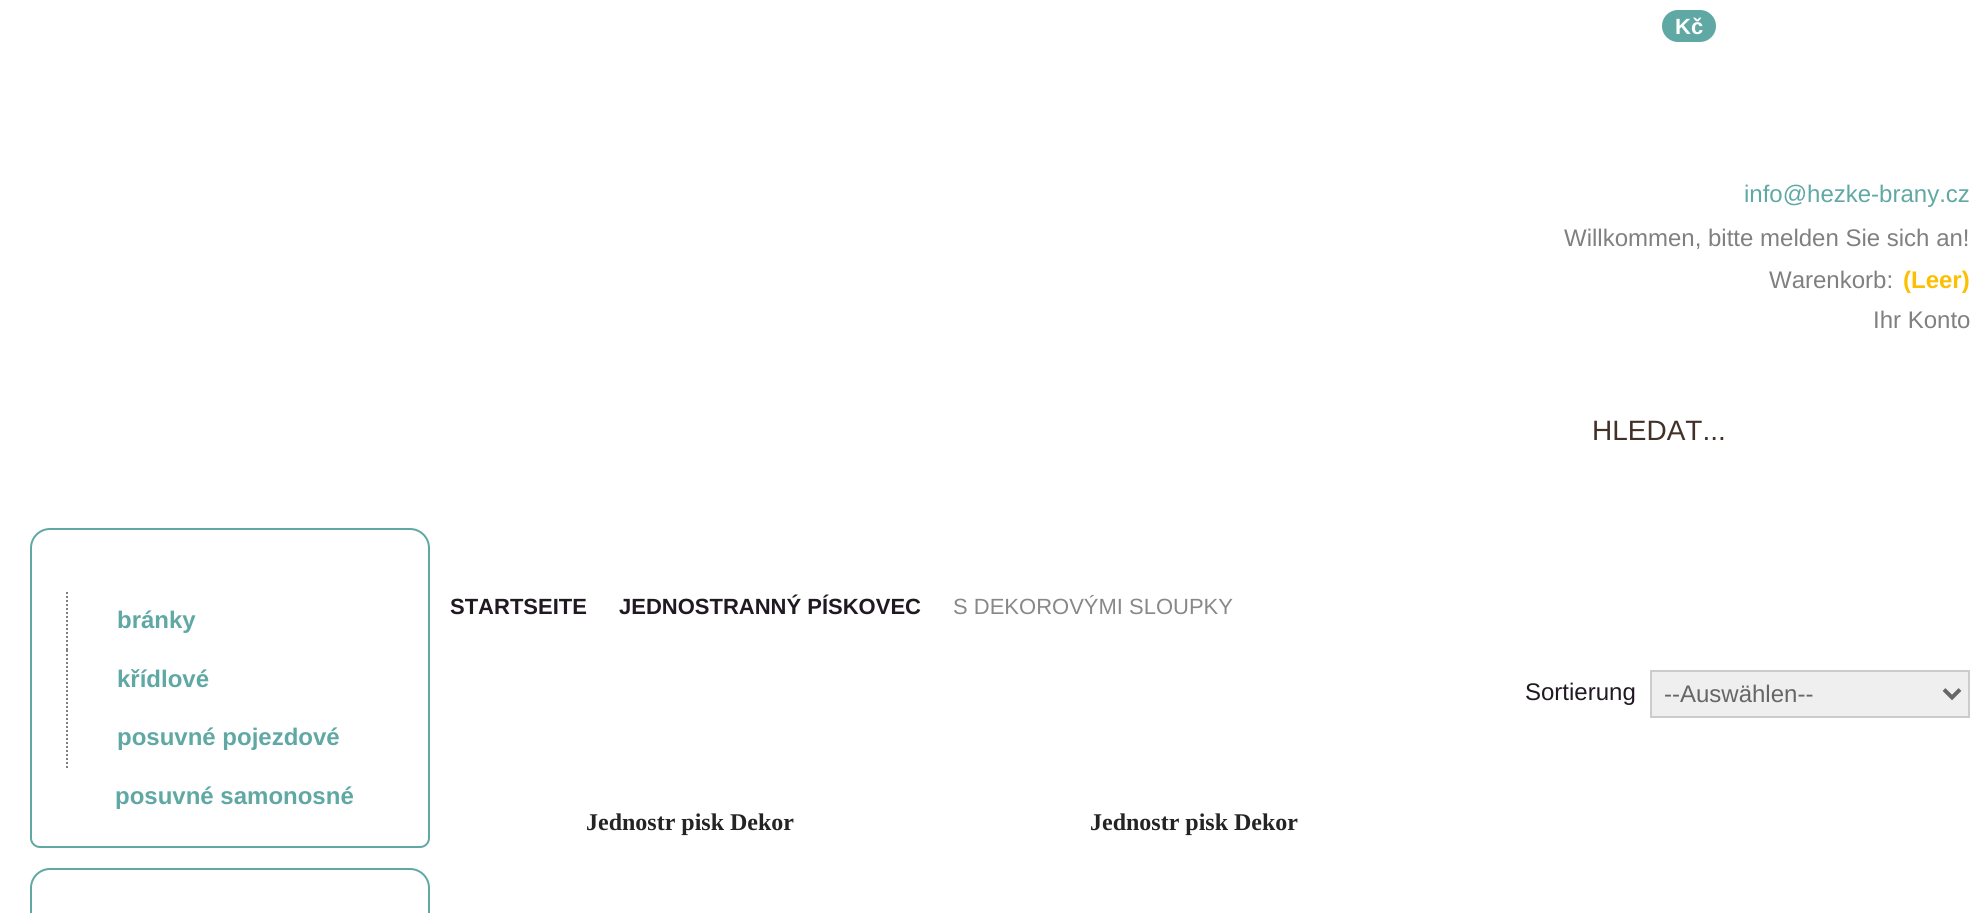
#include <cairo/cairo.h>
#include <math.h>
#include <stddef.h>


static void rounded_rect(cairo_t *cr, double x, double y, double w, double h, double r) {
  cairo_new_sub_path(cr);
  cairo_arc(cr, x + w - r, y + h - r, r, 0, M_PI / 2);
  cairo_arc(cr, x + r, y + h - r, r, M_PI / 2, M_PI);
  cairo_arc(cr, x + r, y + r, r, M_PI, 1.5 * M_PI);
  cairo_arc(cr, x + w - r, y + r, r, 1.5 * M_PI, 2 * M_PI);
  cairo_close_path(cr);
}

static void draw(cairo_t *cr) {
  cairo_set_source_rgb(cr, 1, 1, 1);
  cairo_paint(cr);
  cairo_set_source_rgb(cr, 96 / 255.0, 168 / 255.0, 164 / 255.0);
  rounded_rect(cr, 1662, 10, 54, 32, 16);
  cairo_fill(cr);
  cairo_new_path(cr);
  cairo_move_to(cr, 50, 529);
  cairo_line_to(cr, 410, 529);
  cairo_curve_to(cr, 420.5, 529, 429, 537.5, 429, 548);
  cairo_line_to(cr, 429, 838);
  cairo_curve_to(cr, 429, 843, 425, 847, 420, 847);
  cairo_line_to(cr, 40, 847);
  cairo_curve_to(cr, 35, 847, 31, 843, 31, 838);
  cairo_line_to(cr, 31, 548);
  cairo_curve_to(cr, 31, 537.5, 39.5, 529, 50, 529);
  cairo_close_path(cr);
  cairo_stroke(cr);
  cairo_new_path(cr);
  cairo_move_to(cr, 67, 592);
  cairo_line_to(cr, 67, 650);
  cairo_set_source_rgb(cr, 128 / 255.0, 128 / 255.0, 128 / 255.0);
  cairo_set_dash(cr, (double[]){2, 2}, 2, 0);
  cairo_stroke(cr);
  cairo_new_path(cr);
  cairo_move_to(cr, 67, 650);
  cairo_line_to(cr, 67, 710);
  cairo_stroke(cr);
  cairo_new_path(cr);
  cairo_move_to(cr, 67, 710);
  cairo_line_to(cr, 67, 768);
  cairo_stroke(cr);
  cairo_new_path(cr);
  cairo_move_to(cr, 50, 869);
  cairo_line_to(cr, 410, 869);
  cairo_curve_to(cr, 420.5, 869, 429, 877.5, 429, 888);
  cairo_line_to(cr, 429, 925);
  cairo_curve_to(cr, 429, 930, 425, 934, 420, 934);
  cairo_line_to(cr, 40, 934);
  cairo_curve_to(cr, 35, 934, 31, 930, 31, 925);
  cairo_line_to(cr, 31, 888);
  cairo_curve_to(cr, 31, 877.5, 39.5, 869, 50, 869);
  cairo_close_path(cr);
  cairo_set_source_rgb(cr, 96 / 255.0, 168 / 255.0, 164 / 255.0);
  cairo_set_dash(cr, NULL, 0, 0);
  cairo_stroke(cr);
  cairo_set_source_rgb(cr, 239 / 255.0, 239 / 255.0, 239 / 255.0);
  cairo_rectangle(cr, 1651, 671, 318, 46);
  cairo_fill_preserve(cr);
  cairo_set_source_rgb(cr, 204 / 255.0, 204 / 255.0, 204 / 255.0);
  cairo_stroke(cr);
  cairo_new_path(cr);
  cairo_move_to(cr, 1944, 689.5);
  cairo_line_to(cr, 1952, 697.5);
  cairo_line_to(cr, 1960, 689.5);
  cairo_set_source_rgb(cr, 102 / 255.0, 102 / 255.0, 102 / 255.0);
  cairo_set_line_width(cr, 4);
  cairo_stroke(cr);
  cairo_select_font_face(cr, "Liberation Sans", CAIRO_FONT_SLANT_NORMAL, CAIRO_FONT_WEIGHT_BOLD);
  cairo_set_font_size(cr, 22);
  cairo_set_source_rgb(cr, 1, 1, 1);
  cairo_move_to(cr, 1675, 34);
  cairo_show_text(cr, "Kč");
  cairo_select_font_face(cr, "Liberation Sans", CAIRO_FONT_SLANT_NORMAL, CAIRO_FONT_WEIGHT_NORMAL);
  cairo_set_font_size(cr, 24);
  cairo_set_source_rgb(cr, 96 / 255.0, 168 / 255.0, 164 / 255.0);
  cairo_move_to(cr, 1744, 202);
  cairo_show_text(cr, "info@hezke-brany.cz");
  cairo_set_source_rgb(cr, 128 / 255.0, 128 / 255.0, 128 / 255.0);
  cairo_move_to(cr, 1564, 246);
  cairo_show_text(cr, "Willkommen, bitte melden Sie sich an!");
  cairo_move_to(cr, 1769, 288);
  cairo_show_text(cr, "Warenkorb:");
  cairo_select_font_face(cr, "Liberation Sans", CAIRO_FONT_SLANT_NORMAL, CAIRO_FONT_WEIGHT_BOLD);
  cairo_set_source_rgb(cr, 252 / 255.0, 191 / 255.0, 2 / 255.0);
  cairo_move_to(cr, 1903, 288);
  cairo_show_text(cr, "(Leer)");
  cairo_select_font_face(cr, "Liberation Sans", CAIRO_FONT_SLANT_NORMAL, CAIRO_FONT_WEIGHT_NORMAL);
  cairo_set_source_rgb(cr, 128 / 255.0, 128 / 255.0, 128 / 255.0);
  cairo_move_to(cr, 1873, 328);
  cairo_show_text(cr, "Ihr Konto");
  cairo_set_font_size(cr, 28);
  cairo_set_source_rgb(cr, 67 / 255.0, 48 / 255.0, 41 / 255.0);
  cairo_move_to(cr, 1592, 440);
  cairo_show_text(cr, "HLEDAT...");
  cairo_select_font_face(cr, "Liberation Sans", CAIRO_FONT_SLANT_NORMAL, CAIRO_FONT_WEIGHT_BOLD);
  cairo_set_font_size(cr, 24);
  cairo_set_source_rgb(cr, 96 / 255.0, 168 / 255.0, 164 / 255.0);
  cairo_move_to(cr, 117, 628);
  cairo_show_text(cr, "bránky");
  cairo_move_to(cr, 117, 687);
  cairo_show_text(cr, "křídlové");
  cairo_move_to(cr, 117, 745);
  cairo_show_text(cr, "posuvné pojezdové");
  cairo_move_to(cr, 115, 804);
  cairo_show_text(cr, "posuvné samonosné");
  cairo_set_font_size(cr, 22);
  cairo_set_source_rgb(cr, 33 / 255.0, 25 / 255.0, 34 / 255.0);
  cairo_move_to(cr, 450, 614);
  cairo_show_text(cr, "STARTSEITE");
  cairo_move_to(cr, 619, 614);
  cairo_show_text(cr, "JEDNOSTRANNÝ PÍSKOVEC");
  cairo_select_font_face(cr, "Liberation Sans", CAIRO_FONT_SLANT_NORMAL, CAIRO_FONT_WEIGHT_NORMAL);
  cairo_set_source_rgb(cr, 136 / 255.0, 136 / 255.0, 136 / 255.0);
  cairo_move_to(cr, 953, 614);
  cairo_show_text(cr, "S DEKOROVÝMI SLOUPKY");
  cairo_set_font_size(cr, 24);
  cairo_set_source_rgb(cr, 33 / 255.0, 25 / 255.0, 34 / 255.0);
  cairo_move_to(cr, 1525, 700);
  cairo_show_text(cr, "Sortierung");
  cairo_set_source_rgb(cr, 102 / 255.0, 102 / 255.0, 102 / 255.0);
  cairo_move_to(cr, 1664, 702);
  cairo_show_text(cr, "--Auswählen--");
  cairo_select_font_face(cr, "Liberation Serif", CAIRO_FONT_SLANT_NORMAL, CAIRO_FONT_WEIGHT_BOLD);
  cairo_set_source_rgb(cr, 36 / 255.0, 36 / 255.0, 36 / 255.0);
  cairo_move_to(cr, 586, 830);
  cairo_show_text(cr, "Jednostr pisk Dekor");
  cairo_move_to(cr, 1090, 830);
  cairo_show_text(cr, "Jednostr pisk Dekor");
}

int main(void) {
  cairo_surface_t *surface = cairo_image_surface_create(CAIRO_FORMAT_RGB24, 1985, 913);
  cairo_t *cr = cairo_create(surface);
  cairo_font_options_t *options = cairo_font_options_create();
  cairo_font_options_set_hint_metrics(options, CAIRO_HINT_METRICS_OFF);
  cairo_font_options_set_hint_style(options, CAIRO_HINT_STYLE_NONE);
  cairo_set_font_options(cr, options);
  cairo_set_miter_limit(cr, 4);
  draw(cr);
  cairo_surface_write_to_png(surface, "out.png");
  cairo_font_options_destroy(options);
  cairo_destroy(cr);
  cairo_surface_destroy(surface);
  return 0;
}
